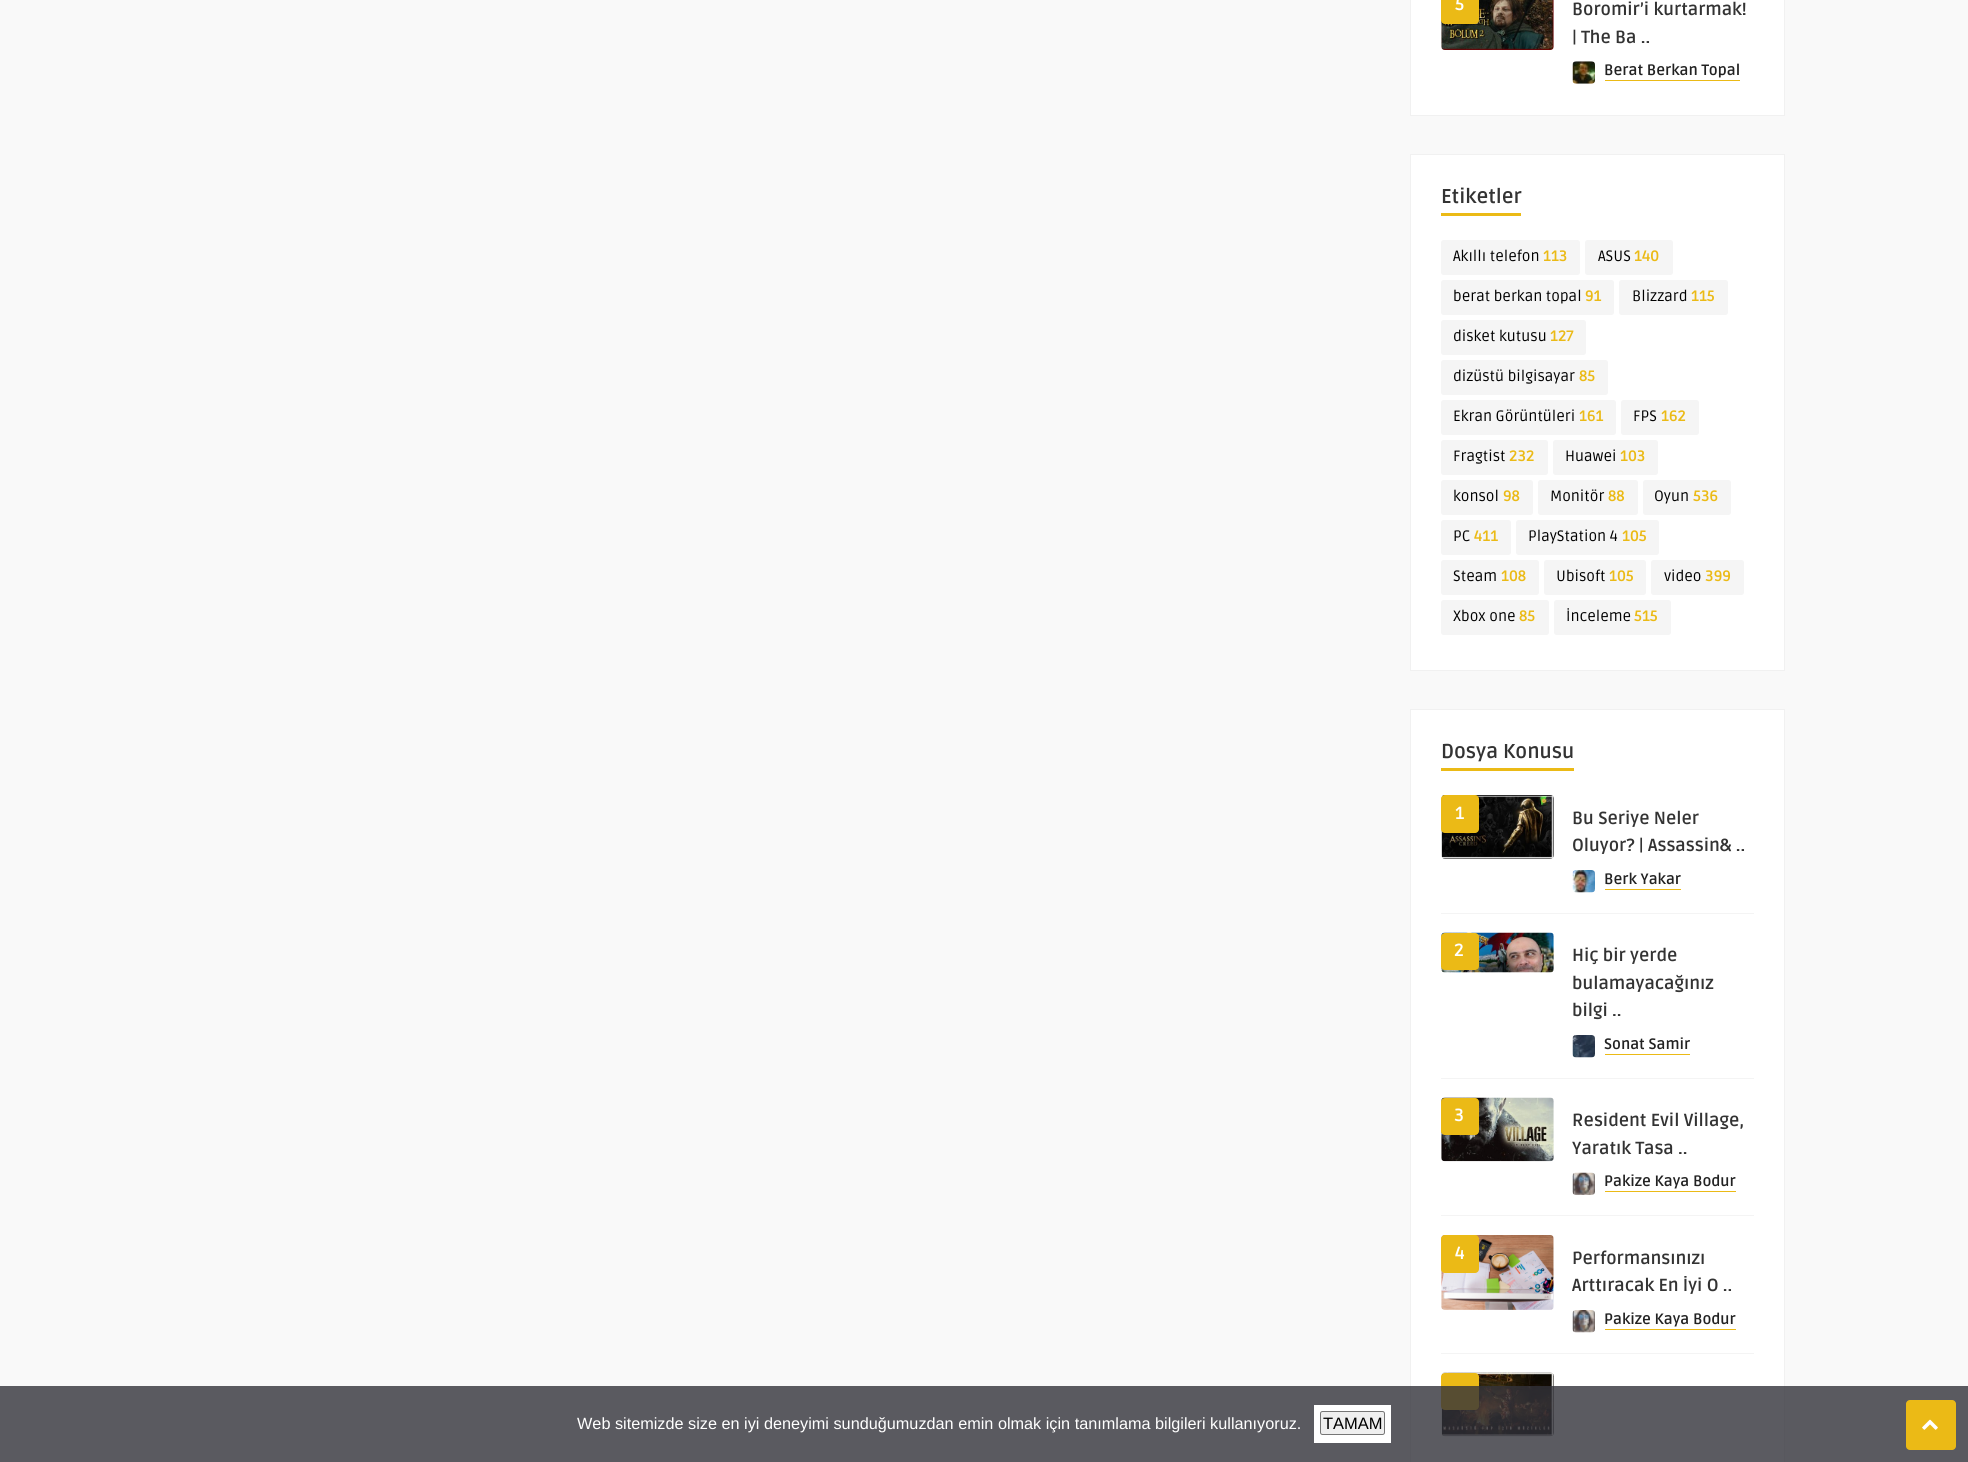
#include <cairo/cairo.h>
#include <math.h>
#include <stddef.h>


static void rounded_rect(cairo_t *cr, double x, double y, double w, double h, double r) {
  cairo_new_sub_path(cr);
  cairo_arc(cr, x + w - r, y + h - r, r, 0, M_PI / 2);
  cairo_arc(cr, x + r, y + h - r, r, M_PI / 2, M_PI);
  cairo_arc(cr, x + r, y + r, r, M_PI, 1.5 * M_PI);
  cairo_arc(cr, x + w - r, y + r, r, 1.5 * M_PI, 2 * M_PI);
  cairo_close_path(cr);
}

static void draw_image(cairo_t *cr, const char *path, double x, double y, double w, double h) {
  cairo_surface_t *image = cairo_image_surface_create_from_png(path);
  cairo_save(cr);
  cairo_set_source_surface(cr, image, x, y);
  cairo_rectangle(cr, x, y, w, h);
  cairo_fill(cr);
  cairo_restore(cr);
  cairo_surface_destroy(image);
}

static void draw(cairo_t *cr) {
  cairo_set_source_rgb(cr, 249 / 255.0, 249 / 255.0, 249 / 255.0);
  cairo_paint(cr);
  cairo_set_source_rgb(cr, 1, 1, 1);
  cairo_rectangle(cr, 1410.5, -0.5, 374, 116);
  cairo_fill_preserve(cr);
  cairo_set_source_rgb(cr, 241 / 255.0, 241 / 255.0, 241 / 255.0);
  cairo_set_line_width(cr, 1);
  cairo_stroke(cr);
  draw_image(cr, "images/1.png", 1441, 0, 113, 50);
  cairo_set_source_rgb(cr, 235 / 255.0, 186 / 255.0, 22 / 255.0);
  rounded_rect(cr, 1441, -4, 38, 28, 4);
  cairo_fill(cr);
  draw_image(cr, "images/2.png", 1572, 61, 23, 23);
  cairo_rectangle(cr, 1605, 80, 135, 1);
  cairo_fill(cr);
  cairo_set_source_rgb(cr, 1, 1, 1);
  cairo_rectangle(cr, 1410.5, 154.5, 374, 516);
  cairo_fill_preserve(cr);
  cairo_set_source_rgb(cr, 241 / 255.0, 241 / 255.0, 241 / 255.0);
  cairo_stroke(cr);
  cairo_set_source_rgb(cr, 235 / 255.0, 186 / 255.0, 22 / 255.0);
  cairo_rectangle(cr, 1441, 213, 80, 3);
  cairo_fill(cr);
  cairo_set_source_rgb(cr, 245 / 255.0, 245 / 255.0, 245 / 255.0);
  rounded_rect(cr, 1441, 240, 139, 35, 2.5);
  cairo_fill(cr);
  rounded_rect(cr, 1585, 240, 88, 35, 2.5);
  cairo_fill(cr);
  rounded_rect(cr, 1441, 280, 173, 35, 2.5);
  cairo_fill(cr);
  rounded_rect(cr, 1619, 280, 109, 35, 2.5);
  cairo_fill(cr);
  rounded_rect(cr, 1441, 320, 145, 35, 2.5);
  cairo_fill(cr);
  rounded_rect(cr, 1441, 360, 167, 35, 2.5);
  cairo_fill(cr);
  rounded_rect(cr, 1441, 400, 175, 35, 2.5);
  cairo_fill(cr);
  rounded_rect(cr, 1621, 400, 78, 35, 2.5);
  cairo_fill(cr);
  rounded_rect(cr, 1441, 440, 107, 35, 2.5);
  cairo_fill(cr);
  rounded_rect(cr, 1553, 440, 105, 35, 2.5);
  cairo_fill(cr);
  rounded_rect(cr, 1441, 480, 92, 35, 2.5);
  cairo_fill(cr);
  rounded_rect(cr, 1538, 480, 100, 35, 2.5);
  cairo_fill(cr);
  rounded_rect(cr, 1643, 480, 88, 35, 2.5);
  cairo_fill(cr);
  rounded_rect(cr, 1441, 520, 70, 35, 2.5);
  cairo_fill(cr);
  rounded_rect(cr, 1516, 520, 143, 35, 2.5);
  cairo_fill(cr);
  rounded_rect(cr, 1441, 560, 98, 35, 2.5);
  cairo_fill(cr);
  rounded_rect(cr, 1544, 560, 102, 35, 2.5);
  cairo_fill(cr);
  rounded_rect(cr, 1651, 560, 93, 35, 2.5);
  cairo_fill(cr);
  rounded_rect(cr, 1441, 600, 108, 35, 2.5);
  cairo_fill(cr);
  rounded_rect(cr, 1554, 600, 117, 35, 2.5);
  cairo_fill(cr);
  cairo_set_source_rgb(cr, 1, 1, 1);
  cairo_rectangle(cr, 1410.5, 709.5, 374, 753);
  cairo_fill_preserve(cr);
  cairo_set_source_rgb(cr, 241 / 255.0, 241 / 255.0, 241 / 255.0);
  cairo_stroke(cr);
  cairo_set_source_rgb(cr, 235 / 255.0, 186 / 255.0, 22 / 255.0);
  cairo_rectangle(cr, 1441, 768, 133, 3);
  cairo_fill(cr);
  cairo_set_source_rgb(cr, 244 / 255.0, 244 / 255.0, 244 / 255.0);
  cairo_rectangle(cr, 1441, 913, 313, 1);
  cairo_fill(cr);
  draw_image(cr, "images/3.png", 1441, 795, 113, 64);
  cairo_set_source_rgb(cr, 235 / 255.0, 186 / 255.0, 22 / 255.0);
  rounded_rect(cr, 1441, 795, 38, 38, 4);
  cairo_fill(cr);
  draw_image(cr, "images/4.png", 1572, 870, 23, 23);
  cairo_rectangle(cr, 1605, 889, 76, 1);
  cairo_fill(cr);
  cairo_set_source_rgb(cr, 244 / 255.0, 244 / 255.0, 244 / 255.0);
  cairo_rectangle(cr, 1441, 1078, 313, 1);
  cairo_fill(cr);
  draw_image(cr, "images/5.png", 1441, 932, 113, 41);
  cairo_set_source_rgb(cr, 235 / 255.0, 186 / 255.0, 22 / 255.0);
  rounded_rect(cr, 1441, 933, 38, 37, 4);
  cairo_fill(cr);
  draw_image(cr, "images/6.png", 1572, 1035, 23, 23);
  cairo_rectangle(cr, 1605, 1054, 85, 1);
  cairo_fill(cr);
  cairo_set_source_rgb(cr, 244 / 255.0, 244 / 255.0, 244 / 255.0);
  cairo_rectangle(cr, 1441, 1215, 313, 1);
  cairo_fill(cr);
  draw_image(cr, "images/7.png", 1441, 1097, 113, 65);
  cairo_set_source_rgb(cr, 235 / 255.0, 186 / 255.0, 22 / 255.0);
  rounded_rect(cr, 1441, 1098, 38, 37, 4);
  cairo_fill(cr);
  draw_image(cr, "images/8.png", 1572, 1172, 23, 23);
  cairo_rectangle(cr, 1605, 1191, 131, 1);
  cairo_fill(cr);
  cairo_set_source_rgb(cr, 244 / 255.0, 244 / 255.0, 244 / 255.0);
  cairo_rectangle(cr, 1441, 1353, 313, 1);
  cairo_fill(cr);
  draw_image(cr, "images/9.png", 1441, 1235, 113, 75);
  cairo_set_source_rgb(cr, 235 / 255.0, 186 / 255.0, 22 / 255.0);
  rounded_rect(cr, 1441, 1235, 38, 38, 4);
  cairo_fill(cr);
  draw_image(cr, "images/10.png", 1572, 1310, 23, 23);
  cairo_rectangle(cr, 1605, 1329, 131, 1);
  cairo_fill(cr);
  draw_image(cr, "images/11.png", 1441, 1372, 113, 65);
  rounded_rect(cr, 1441, 1373, 38, 37, 4);
  cairo_fill(cr);
  cairo_set_source_rgba(cr, 50 / 255.0, 50 / 255.0, 58 / 255.0, 0.8);
  cairo_rectangle(cr, 0, 1386, 1968, 76);
  cairo_fill(cr);
  cairo_set_source_rgb(cr, 1, 1, 1);
  cairo_rectangle(cr, 1314, 1405, 77, 38);
  cairo_fill(cr);
  cairo_set_source_rgb(cr, 239 / 255.0, 239 / 255.0, 239 / 255.0);
  rounded_rect(cr, 1320.5, 1411.5, 64, 23, 2);
  cairo_fill_preserve(cr);
  cairo_set_source_rgb(cr, 118 / 255.0, 118 / 255.0, 118 / 255.0);
  cairo_stroke(cr);
  cairo_set_source_rgb(cr, 235 / 255.0, 186 / 255.0, 22 / 255.0);
  rounded_rect(cr, 1906, 1400, 50, 50, 4);
  cairo_fill(cr);
  draw_image(cr, "images/12.png", 1922, 1419, 16, 11);
  cairo_select_font_face(cr, "Ruda", CAIRO_FONT_SLANT_NORMAL, CAIRO_FONT_WEIGHT_BOLD);
  cairo_set_font_size(cr, 17.5);
  cairo_set_source_rgb(cr, 1, 1, 1);
  cairo_move_to(cr, 1455, 10);
  cairo_show_text(cr, "5");
  cairo_set_source_rgb(cr, 51 / 255.0, 51 / 255.0, 51 / 255.0);
  cairo_move_to(cr, 1572, 15);
  cairo_show_text(cr, "Boromir’i kurtarmak!");
  cairo_move_to(cr, 1572, 43);
  cairo_show_text(cr, "| The Ba ..");
  cairo_set_font_size(cr, 15);
  cairo_set_source_rgb(cr, 34 / 255.0, 34 / 255.0, 34 / 255.0);
  cairo_move_to(cr, 1604, 75);
  cairo_show_text(cr, "Berat Berkan Topal");
  cairo_set_font_size(cr, 20);
  cairo_set_source_rgb(cr, 51 / 255.0, 51 / 255.0, 51 / 255.0);
  cairo_move_to(cr, 1441, 203);
  cairo_show_text(cr, "Etiketler");
  cairo_select_font_face(cr, "Ruda", CAIRO_FONT_SLANT_NORMAL, CAIRO_FONT_WEIGHT_NORMAL);
  cairo_set_font_size(cr, 15);
  cairo_set_source_rgb(cr, 0, 0, 0);
  cairo_move_to(cr, 1453, 261);
  cairo_show_text(cr, "Akıllı telefon");
  cairo_select_font_face(cr, "Ruda", CAIRO_FONT_SLANT_NORMAL, CAIRO_FONT_WEIGHT_BOLD);
  cairo_set_source_rgb(cr, 235 / 255.0, 186 / 255.0, 22 / 255.0);
  cairo_move_to(cr, 1543, 261);
  cairo_show_text(cr, "113");
  cairo_select_font_face(cr, "Ruda", CAIRO_FONT_SLANT_NORMAL, CAIRO_FONT_WEIGHT_NORMAL);
  cairo_set_source_rgb(cr, 0, 0, 0);
  cairo_move_to(cr, 1598, 261);
  cairo_show_text(cr, "ASUS");
  cairo_select_font_face(cr, "Ruda", CAIRO_FONT_SLANT_NORMAL, CAIRO_FONT_WEIGHT_BOLD);
  cairo_set_source_rgb(cr, 235 / 255.0, 186 / 255.0, 22 / 255.0);
  cairo_move_to(cr, 1634, 261);
  cairo_show_text(cr, "140");
  cairo_select_font_face(cr, "Ruda", CAIRO_FONT_SLANT_NORMAL, CAIRO_FONT_WEIGHT_NORMAL);
  cairo_set_source_rgb(cr, 0, 0, 0);
  cairo_move_to(cr, 1453, 301);
  cairo_show_text(cr, "berat berkan topal");
  cairo_select_font_face(cr, "Ruda", CAIRO_FONT_SLANT_NORMAL, CAIRO_FONT_WEIGHT_BOLD);
  cairo_set_source_rgb(cr, 235 / 255.0, 186 / 255.0, 22 / 255.0);
  cairo_move_to(cr, 1585, 301);
  cairo_show_text(cr, "91");
  cairo_select_font_face(cr, "Ruda", CAIRO_FONT_SLANT_NORMAL, CAIRO_FONT_WEIGHT_NORMAL);
  cairo_set_source_rgb(cr, 0, 0, 0);
  cairo_move_to(cr, 1632, 301);
  cairo_show_text(cr, "Blizzard");
  cairo_select_font_face(cr, "Ruda", CAIRO_FONT_SLANT_NORMAL, CAIRO_FONT_WEIGHT_BOLD);
  cairo_set_source_rgb(cr, 235 / 255.0, 186 / 255.0, 22 / 255.0);
  cairo_move_to(cr, 1691, 301);
  cairo_show_text(cr, "115");
  cairo_select_font_face(cr, "Ruda", CAIRO_FONT_SLANT_NORMAL, CAIRO_FONT_WEIGHT_NORMAL);
  cairo_set_source_rgb(cr, 0, 0, 0);
  cairo_move_to(cr, 1453, 341);
  cairo_show_text(cr, "disket kutusu");
  cairo_select_font_face(cr, "Ruda", CAIRO_FONT_SLANT_NORMAL, CAIRO_FONT_WEIGHT_BOLD);
  cairo_set_source_rgb(cr, 235 / 255.0, 186 / 255.0, 22 / 255.0);
  cairo_move_to(cr, 1550, 341);
  cairo_show_text(cr, "127");
  cairo_select_font_face(cr, "Ruda", CAIRO_FONT_SLANT_NORMAL, CAIRO_FONT_WEIGHT_NORMAL);
  cairo_set_source_rgb(cr, 0, 0, 0);
  cairo_move_to(cr, 1453, 381);
  cairo_show_text(cr, "dizüstü bilgisayar");
  cairo_select_font_face(cr, "Ruda", CAIRO_FONT_SLANT_NORMAL, CAIRO_FONT_WEIGHT_BOLD);
  cairo_set_source_rgb(cr, 235 / 255.0, 186 / 255.0, 22 / 255.0);
  cairo_move_to(cr, 1579, 381);
  cairo_show_text(cr, "85");
  cairo_select_font_face(cr, "Ruda", CAIRO_FONT_SLANT_NORMAL, CAIRO_FONT_WEIGHT_NORMAL);
  cairo_set_source_rgb(cr, 0, 0, 0);
  cairo_move_to(cr, 1453, 421);
  cairo_show_text(cr, "Ekran Görüntüleri");
  cairo_select_font_face(cr, "Ruda", CAIRO_FONT_SLANT_NORMAL, CAIRO_FONT_WEIGHT_BOLD);
  cairo_set_source_rgb(cr, 235 / 255.0, 186 / 255.0, 22 / 255.0);
  cairo_move_to(cr, 1579, 421);
  cairo_show_text(cr, "161");
  cairo_select_font_face(cr, "Ruda", CAIRO_FONT_SLANT_NORMAL, CAIRO_FONT_WEIGHT_NORMAL);
  cairo_set_source_rgb(cr, 0, 0, 0);
  cairo_move_to(cr, 1633, 421);
  cairo_show_text(cr, "FPS");
  cairo_select_font_face(cr, "Ruda", CAIRO_FONT_SLANT_NORMAL, CAIRO_FONT_WEIGHT_BOLD);
  cairo_set_source_rgb(cr, 235 / 255.0, 186 / 255.0, 22 / 255.0);
  cairo_move_to(cr, 1661, 421);
  cairo_show_text(cr, "162");
  cairo_select_font_face(cr, "Ruda", CAIRO_FONT_SLANT_NORMAL, CAIRO_FONT_WEIGHT_NORMAL);
  cairo_set_source_rgb(cr, 0, 0, 0);
  cairo_move_to(cr, 1453, 461);
  cairo_show_text(cr, "Fragtist");
  cairo_select_font_face(cr, "Ruda", CAIRO_FONT_SLANT_NORMAL, CAIRO_FONT_WEIGHT_BOLD);
  cairo_set_source_rgb(cr, 235 / 255.0, 186 / 255.0, 22 / 255.0);
  cairo_move_to(cr, 1509, 461);
  cairo_show_text(cr, "232");
  cairo_select_font_face(cr, "Ruda", CAIRO_FONT_SLANT_NORMAL, CAIRO_FONT_WEIGHT_NORMAL);
  cairo_set_source_rgb(cr, 0, 0, 0);
  cairo_move_to(cr, 1565, 461);
  cairo_show_text(cr, "Huawei");
  cairo_select_font_face(cr, "Ruda", CAIRO_FONT_SLANT_NORMAL, CAIRO_FONT_WEIGHT_BOLD);
  cairo_set_source_rgb(cr, 235 / 255.0, 186 / 255.0, 22 / 255.0);
  cairo_move_to(cr, 1620, 461);
  cairo_show_text(cr, "103");
  cairo_select_font_face(cr, "Ruda", CAIRO_FONT_SLANT_NORMAL, CAIRO_FONT_WEIGHT_NORMAL);
  cairo_set_source_rgb(cr, 0, 0, 0);
  cairo_move_to(cr, 1453, 501);
  cairo_show_text(cr, "konsol");
  cairo_select_font_face(cr, "Ruda", CAIRO_FONT_SLANT_NORMAL, CAIRO_FONT_WEIGHT_BOLD);
  cairo_set_source_rgb(cr, 235 / 255.0, 186 / 255.0, 22 / 255.0);
  cairo_move_to(cr, 1503, 501);
  cairo_show_text(cr, "98");
  cairo_select_font_face(cr, "Ruda", CAIRO_FONT_SLANT_NORMAL, CAIRO_FONT_WEIGHT_NORMAL);
  cairo_set_source_rgb(cr, 0, 0, 0);
  cairo_move_to(cr, 1550, 501);
  cairo_show_text(cr, "Monitör");
  cairo_select_font_face(cr, "Ruda", CAIRO_FONT_SLANT_NORMAL, CAIRO_FONT_WEIGHT_BOLD);
  cairo_set_source_rgb(cr, 235 / 255.0, 186 / 255.0, 22 / 255.0);
  cairo_move_to(cr, 1608, 501);
  cairo_show_text(cr, "88");
  cairo_select_font_face(cr, "Ruda", CAIRO_FONT_SLANT_NORMAL, CAIRO_FONT_WEIGHT_NORMAL);
  cairo_set_source_rgb(cr, 0, 0, 0);
  cairo_move_to(cr, 1654, 501);
  cairo_show_text(cr, "Oyun");
  cairo_select_font_face(cr, "Ruda", CAIRO_FONT_SLANT_NORMAL, CAIRO_FONT_WEIGHT_BOLD);
  cairo_set_source_rgb(cr, 235 / 255.0, 186 / 255.0, 22 / 255.0);
  cairo_move_to(cr, 1693, 501);
  cairo_show_text(cr, "536");
  cairo_select_font_face(cr, "Ruda", CAIRO_FONT_SLANT_NORMAL, CAIRO_FONT_WEIGHT_NORMAL);
  cairo_set_source_rgb(cr, 0, 0, 0);
  cairo_move_to(cr, 1453, 541);
  cairo_show_text(cr, "PC");
  cairo_select_font_face(cr, "Ruda", CAIRO_FONT_SLANT_NORMAL, CAIRO_FONT_WEIGHT_BOLD);
  cairo_set_source_rgb(cr, 235 / 255.0, 186 / 255.0, 22 / 255.0);
  cairo_move_to(cr, 1474, 541);
  cairo_show_text(cr, "411");
  cairo_select_font_face(cr, "Ruda", CAIRO_FONT_SLANT_NORMAL, CAIRO_FONT_WEIGHT_NORMAL);
  cairo_set_source_rgb(cr, 0, 0, 0);
  cairo_move_to(cr, 1528, 541);
  cairo_show_text(cr, "PlayStation 4");
  cairo_select_font_face(cr, "Ruda", CAIRO_FONT_SLANT_NORMAL, CAIRO_FONT_WEIGHT_BOLD);
  cairo_set_source_rgb(cr, 235 / 255.0, 186 / 255.0, 22 / 255.0);
  cairo_move_to(cr, 1622, 541);
  cairo_show_text(cr, "105");
  cairo_select_font_face(cr, "Ruda", CAIRO_FONT_SLANT_NORMAL, CAIRO_FONT_WEIGHT_NORMAL);
  cairo_set_source_rgb(cr, 0, 0, 0);
  cairo_move_to(cr, 1453, 581);
  cairo_show_text(cr, "Steam");
  cairo_select_font_face(cr, "Ruda", CAIRO_FONT_SLANT_NORMAL, CAIRO_FONT_WEIGHT_BOLD);
  cairo_set_source_rgb(cr, 235 / 255.0, 186 / 255.0, 22 / 255.0);
  cairo_move_to(cr, 1501, 581);
  cairo_show_text(cr, "108");
  cairo_select_font_face(cr, "Ruda", CAIRO_FONT_SLANT_NORMAL, CAIRO_FONT_WEIGHT_NORMAL);
  cairo_set_source_rgb(cr, 0, 0, 0);
  cairo_move_to(cr, 1556, 581);
  cairo_show_text(cr, "Ubisoft");
  cairo_select_font_face(cr, "Ruda", CAIRO_FONT_SLANT_NORMAL, CAIRO_FONT_WEIGHT_BOLD);
  cairo_set_source_rgb(cr, 235 / 255.0, 186 / 255.0, 22 / 255.0);
  cairo_move_to(cr, 1609, 581);
  cairo_show_text(cr, "105");
  cairo_select_font_face(cr, "Ruda", CAIRO_FONT_SLANT_NORMAL, CAIRO_FONT_WEIGHT_NORMAL);
  cairo_set_source_rgb(cr, 0, 0, 0);
  cairo_move_to(cr, 1664, 581);
  cairo_show_text(cr, "video");
  cairo_select_font_face(cr, "Ruda", CAIRO_FONT_SLANT_NORMAL, CAIRO_FONT_WEIGHT_BOLD);
  cairo_set_source_rgb(cr, 235 / 255.0, 186 / 255.0, 22 / 255.0);
  cairo_move_to(cr, 1705, 581);
  cairo_show_text(cr, "399");
  cairo_select_font_face(cr, "Ruda", CAIRO_FONT_SLANT_NORMAL, CAIRO_FONT_WEIGHT_NORMAL);
  cairo_set_source_rgb(cr, 0, 0, 0);
  cairo_move_to(cr, 1453, 621);
  cairo_show_text(cr, "Xbox one");
  cairo_select_font_face(cr, "Ruda", CAIRO_FONT_SLANT_NORMAL, CAIRO_FONT_WEIGHT_BOLD);
  cairo_set_source_rgb(cr, 235 / 255.0, 186 / 255.0, 22 / 255.0);
  cairo_move_to(cr, 1519, 621);
  cairo_show_text(cr, "85");
  cairo_select_font_face(cr, "Ruda", CAIRO_FONT_SLANT_NORMAL, CAIRO_FONT_WEIGHT_NORMAL);
  cairo_set_source_rgb(cr, 0, 0, 0);
  cairo_move_to(cr, 1566, 621);
  cairo_show_text(cr, "İnceleme");
  cairo_select_font_face(cr, "Ruda", CAIRO_FONT_SLANT_NORMAL, CAIRO_FONT_WEIGHT_BOLD);
  cairo_set_source_rgb(cr, 235 / 255.0, 186 / 255.0, 22 / 255.0);
  cairo_move_to(cr, 1634, 621);
  cairo_show_text(cr, "515");
  cairo_set_font_size(cr, 20);
  cairo_set_source_rgb(cr, 51 / 255.0, 51 / 255.0, 51 / 255.0);
  cairo_move_to(cr, 1441, 758);
  cairo_show_text(cr, "Dosya Konusu");
  cairo_set_font_size(cr, 17.5);
  cairo_set_source_rgb(cr, 1, 1, 1);
  cairo_move_to(cr, 1455, 819);
  cairo_show_text(cr, "1");
  cairo_set_source_rgb(cr, 51 / 255.0, 51 / 255.0, 51 / 255.0);
  cairo_move_to(cr, 1572, 824);
  cairo_show_text(cr, "Bu Seriye Neler");
  cairo_move_to(cr, 1572, 851);
  cairo_show_text(cr, "Oluyor? | Assassin& ..");
  cairo_set_font_size(cr, 15);
  cairo_set_source_rgb(cr, 34 / 255.0, 34 / 255.0, 34 / 255.0);
  cairo_move_to(cr, 1604, 884);
  cairo_show_text(cr, "Berk Yakar");
  cairo_set_font_size(cr, 17.5);
  cairo_set_source_rgb(cr, 1, 1, 1);
  cairo_move_to(cr, 1454, 956);
  cairo_show_text(cr, "2");
  cairo_set_source_rgb(cr, 51 / 255.0, 51 / 255.0, 51 / 255.0);
  cairo_move_to(cr, 1572, 961);
  cairo_show_text(cr, "Hiç bir yerde");
  cairo_move_to(cr, 1572, 989);
  cairo_show_text(cr, "bulamayacağınız");
  cairo_move_to(cr, 1572, 1016);
  cairo_show_text(cr, "bilgi ..");
  cairo_set_font_size(cr, 15);
  cairo_set_source_rgb(cr, 34 / 255.0, 34 / 255.0, 34 / 255.0);
  cairo_move_to(cr, 1604, 1049);
  cairo_show_text(cr, "Sonat Samir");
  cairo_set_font_size(cr, 17.5);
  cairo_set_source_rgb(cr, 1, 1, 1);
  cairo_move_to(cr, 1454, 1121);
  cairo_show_text(cr, "3");
  cairo_set_source_rgb(cr, 51 / 255.0, 51 / 255.0, 51 / 255.0);
  cairo_move_to(cr, 1572, 1126);
  cairo_show_text(cr, "Resident Evil Village,");
  cairo_move_to(cr, 1572, 1154);
  cairo_show_text(cr, "Yaratık Tasa ..");
  cairo_set_font_size(cr, 15);
  cairo_set_source_rgb(cr, 34 / 255.0, 34 / 255.0, 34 / 255.0);
  cairo_move_to(cr, 1604, 1186);
  cairo_show_text(cr, "Pakize Kaya Bodur");
  cairo_set_font_size(cr, 17.5);
  cairo_set_source_rgb(cr, 1, 1, 1);
  cairo_move_to(cr, 1455, 1259);
  cairo_show_text(cr, "4");
  cairo_set_source_rgb(cr, 51 / 255.0, 51 / 255.0, 51 / 255.0);
  cairo_move_to(cr, 1572, 1264);
  cairo_show_text(cr, "Performansınızı");
  cairo_move_to(cr, 1572, 1291);
  cairo_show_text(cr, "Arttıracak En İyi O ..");
  cairo_set_font_size(cr, 15);
  cairo_set_source_rgb(cr, 34 / 255.0, 34 / 255.0, 34 / 255.0);
  cairo_move_to(cr, 1604, 1324);
  cairo_show_text(cr, "Pakize Kaya Bodur");
  cairo_select_font_face(cr, "Liberation Sans", CAIRO_FONT_SLANT_NORMAL, CAIRO_FONT_WEIGHT_NORMAL);
  cairo_set_font_size(cr, 16.25);
  cairo_set_source_rgb(cr, 1, 1, 1);
  cairo_move_to(cr, 577, 1429);
  cairo_show_text(cr, "Web sitemizde size en iyi deneyimi sunduğumuzdan emin olmak için tanımlama bilgileri kullanıyoruz.");
  cairo_set_font_size(cr, 16.5);
  cairo_set_source_rgb(cr, 0, 0, 0);
  cairo_move_to(cr, 1323, 1429);
  cairo_show_text(cr, "TAMAM");
}

int main(void) {
  cairo_surface_t *surface = cairo_image_surface_create(CAIRO_FORMAT_RGB24, 1968, 1462);
  cairo_t *cr = cairo_create(surface);
  cairo_font_options_t *options = cairo_font_options_create();
  cairo_font_options_set_hint_metrics(options, CAIRO_HINT_METRICS_OFF);
  cairo_font_options_set_hint_style(options, CAIRO_HINT_STYLE_NONE);
  cairo_set_font_options(cr, options);
  cairo_set_miter_limit(cr, 4);
  draw(cr);
  cairo_surface_write_to_png(surface, "out.png");
  cairo_font_options_destroy(options);
  cairo_destroy(cr);
  cairo_surface_destroy(surface);
  return 0;
}
